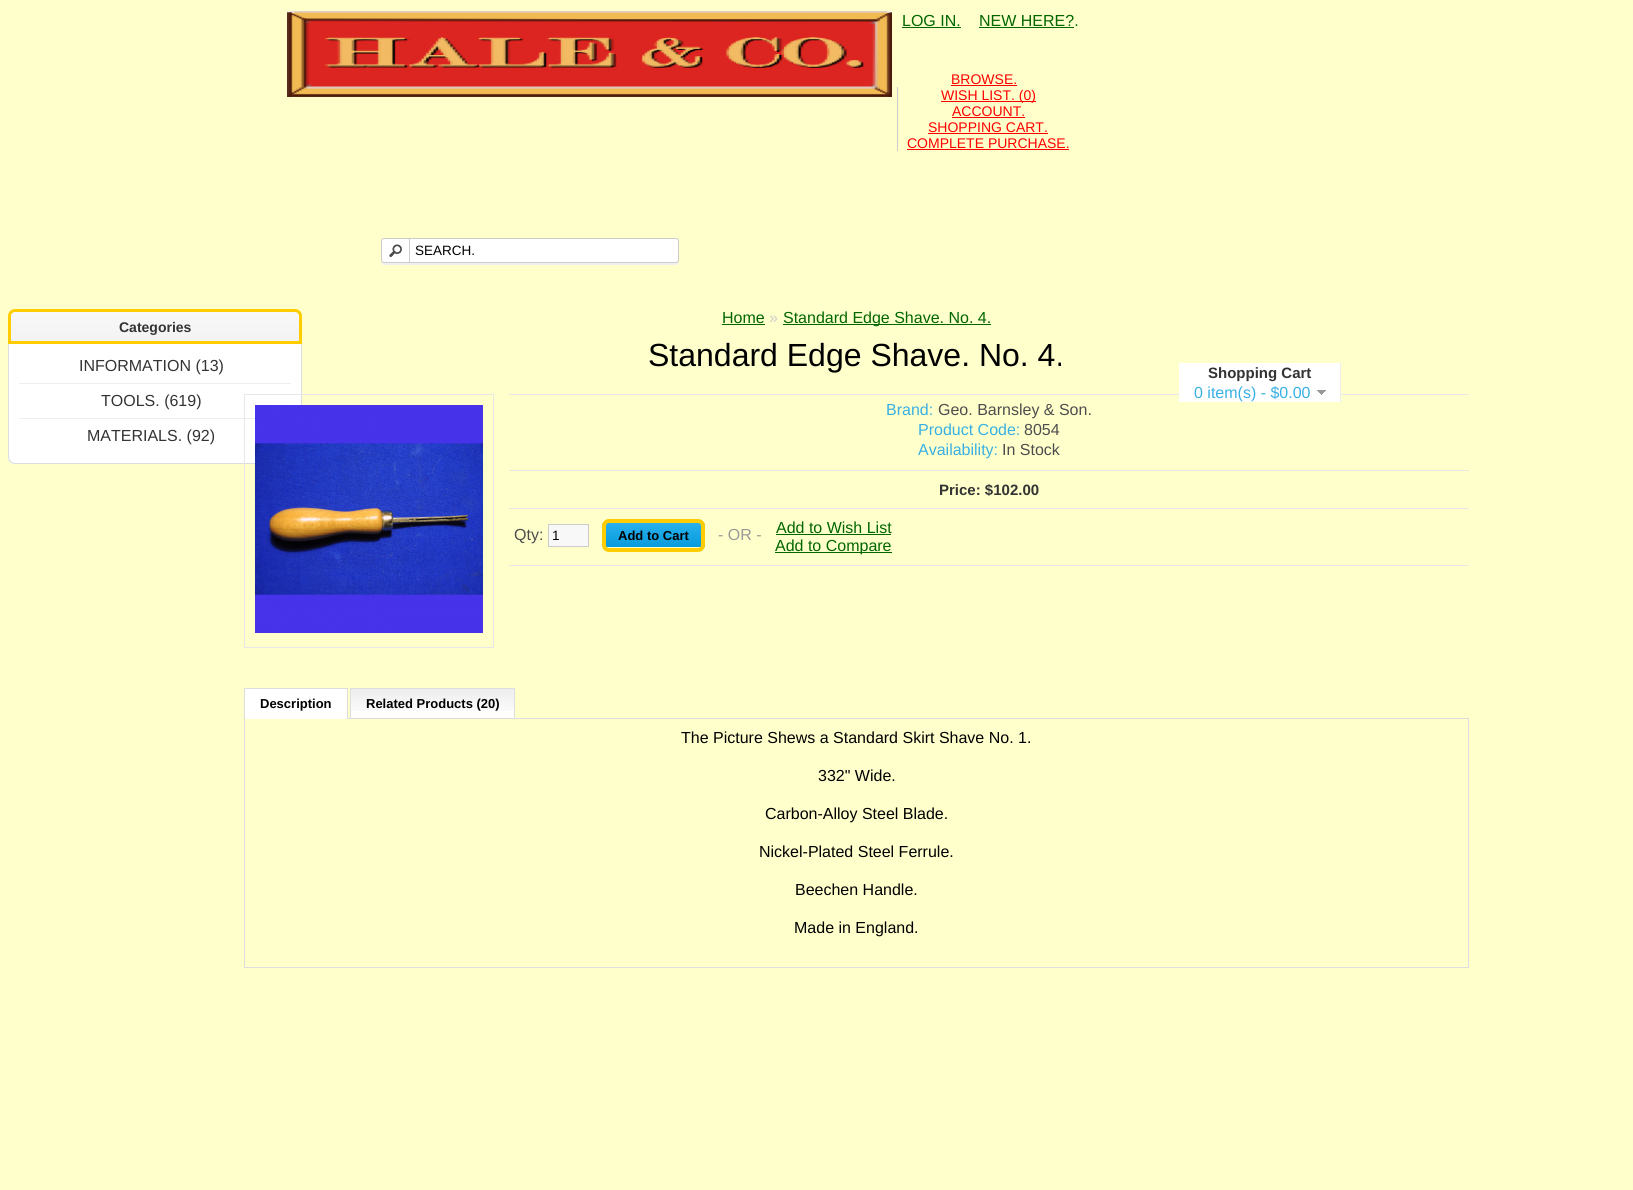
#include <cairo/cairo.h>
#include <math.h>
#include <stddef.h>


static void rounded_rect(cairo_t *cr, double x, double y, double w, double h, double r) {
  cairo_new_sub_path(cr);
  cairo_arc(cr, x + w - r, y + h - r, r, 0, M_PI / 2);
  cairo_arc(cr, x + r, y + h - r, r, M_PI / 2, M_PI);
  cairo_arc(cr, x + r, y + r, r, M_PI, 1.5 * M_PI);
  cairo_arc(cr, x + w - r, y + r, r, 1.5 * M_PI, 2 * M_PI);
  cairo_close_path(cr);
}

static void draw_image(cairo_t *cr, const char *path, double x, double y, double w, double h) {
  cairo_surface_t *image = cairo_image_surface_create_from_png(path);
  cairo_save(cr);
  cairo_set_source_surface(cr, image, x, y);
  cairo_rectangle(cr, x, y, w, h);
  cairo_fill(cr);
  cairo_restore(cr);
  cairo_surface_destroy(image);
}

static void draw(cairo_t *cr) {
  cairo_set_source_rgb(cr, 1, 1, 204 / 255.0);
  cairo_paint(cr);
  draw_image(cr, "images/1.png", 287, 11, 605, 86);
  cairo_set_source_rgb(cr, 0, 102 / 255.0, 0);
  cairo_rectangle(cr, 902, 27, 59, 1);
  cairo_fill(cr);
  cairo_rectangle(cr, 979, 27, 95, 1);
  cairo_fill(cr);
  cairo_set_source_rgb(cr, 1, 0, 0);
  cairo_rectangle(cr, 951, 85, 66, 1);
  cairo_fill(cr);
  cairo_set_source_rgb(cr, 204 / 255.0, 204 / 255.0, 204 / 255.0);
  cairo_rectangle(cr, 897, 87, 1, 64);
  cairo_fill(cr);
  cairo_set_source_rgb(cr, 1, 0, 0);
  cairo_rectangle(cr, 941, 101, 95, 1);
  cairo_fill(cr);
  cairo_rectangle(cr, 952, 117, 73, 1);
  cairo_fill(cr);
  cairo_rectangle(cr, 928, 133, 120, 1);
  cairo_fill(cr);
  cairo_rectangle(cr, 907, 149, 162, 1);
  cairo_fill(cr);
  cairo_set_source_rgb(cr, 240 / 255.0, 240 / 255.0, 240 / 255.0);
  cairo_new_path(cr);
  cairo_move_to(cr, 381, 260);
  cairo_curve_to(cr, 381, 262, 381, 265, 384, 265);
  cairo_line_to(cr, 676, 265);
  cairo_curve_to(cr, 679, 265, 679, 262, 679, 260);
  cairo_curve_to(cr, 679, 262, 678, 263, 676, 263);
  cairo_line_to(cr, 384, 263);
  cairo_curve_to(cr, 382, 263, 381, 262, 381, 260);
  cairo_close_path(cr);
  cairo_fill(cr);
  cairo_set_source_rgb(cr, 1, 1, 1);
  rounded_rect(cr, 381.5, 238.5, 297, 24, 2.5);
  cairo_fill_preserve(cr);
  cairo_set_source_rgb(cr, 204 / 255.0, 204 / 255.0, 204 / 255.0);
  cairo_set_line_width(cr, 1);
  cairo_stroke(cr);
  draw_image(cr, "images/2.png", 389, 244, 13, 13);
  cairo_rectangle(cr, 409, 238, 1, 24);
  cairo_fill(cr);
  cairo_set_source_rgb(cr, 231 / 255.0, 231 / 255.0, 231 / 255.0);
  cairo_rectangle(cr, 509, 394, 960, 1);
  cairo_fill(cr);
  cairo_set_source_rgb(cr, 1, 1, 1);
  cairo_rectangle(cr, 1179, 363, 161, 39);
  cairo_fill(cr);
  cairo_set_source_rgb(cr, 238 / 255.0, 238 / 255.0, 238 / 255.0);
  cairo_rectangle(cr, 1340, 363, 1, 39);
  cairo_fill(cr);
  draw_image(cr, "images/3.png", 1317, 390, 9, 5);
  draw_image(cr, "images/4.png", 8, 312, 294, 29);
  cairo_new_path(cr);
  cairo_move_to(cr, 15, 310.5);
  cairo_line_to(cr, 295, 310.5);
  cairo_curve_to(cr, 298, 310.5, 300.5, 313, 300.5, 316);
  cairo_line_to(cr, 300.5, 342.5);
  cairo_line_to(cr, 9.5, 342.5);
  cairo_line_to(cr, 9.5, 316);
  cairo_curve_to(cr, 9.5, 313, 12, 310.5, 15, 310.5);
  cairo_close_path(cr);
  cairo_set_source_rgb(cr, 1, 204 / 255.0, 0);
  cairo_set_line_width(cr, 3);
  cairo_stroke(cr);
  cairo_set_source_rgb(cr, 1, 1, 1);
  cairo_new_path(cr);
  cairo_move_to(cr, 8, 344);
  cairo_line_to(cr, 302, 344);
  cairo_line_to(cr, 302, 457);
  cairo_curve_to(cr, 302, 461, 299, 464, 295, 464);
  cairo_line_to(cr, 15, 464);
  cairo_curve_to(cr, 11, 464, 8, 461, 8, 457);
  cairo_close_path(cr);
  cairo_fill(cr);
  cairo_set_source_rgb(cr, 219 / 255.0, 222 / 255.0, 225 / 255.0);
  cairo_set_fill_rule(cr, CAIRO_FILL_RULE_EVEN_ODD);
  cairo_new_path(cr);
  cairo_move_to(cr, 8, 344);
  cairo_line_to(cr, 302, 344);
  cairo_line_to(cr, 302, 457);
  cairo_curve_to(cr, 302, 461, 299, 464, 295, 464);
  cairo_line_to(cr, 15, 464);
  cairo_curve_to(cr, 11, 464, 8, 461, 8, 457);
  cairo_close_path(cr);
  cairo_move_to(cr, 9, 344);
  cairo_line_to(cr, 301, 344);
  cairo_line_to(cr, 301, 457);
  cairo_curve_to(cr, 301, 460, 298, 463, 295, 463);
  cairo_line_to(cr, 15, 463);
  cairo_curve_to(cr, 12, 463, 9, 460, 9, 457);
  cairo_close_path(cr);
  cairo_fill(cr);
  cairo_set_source_rgb(cr, 238 / 255.0, 238 / 255.0, 238 / 255.0);
  cairo_rectangle(cr, 19, 383, 272, 1);
  cairo_fill(cr);
  cairo_rectangle(cr, 19, 418, 236, 1);
  cairo_fill(cr);
  cairo_set_source_rgb(cr, 0, 102 / 255.0, 0);
  cairo_rectangle(cr, 722, 324, 43, 1);
  cairo_fill(cr);
  cairo_rectangle(cr, 783, 324, 208, 1);
  cairo_fill(cr);
  cairo_rectangle(cr, 244.5, 394.5, 249, 253);
  cairo_set_source_rgb(cr, 231 / 255.0, 231 / 255.0, 231 / 255.0);
  cairo_set_line_width(cr, 1);
  cairo_stroke(cr);
  draw_image(cr, "images/5.png", 255, 405, 228, 228);
  cairo_rectangle(cr, 509, 470, 960, 1);
  cairo_fill(cr);
  cairo_rectangle(cr, 509, 508, 960, 1);
  cairo_fill(cr);
  cairo_rectangle(cr, 509, 565, 960, 1);
  cairo_fill(cr);
  cairo_set_source_rgb(cr, 248 / 255.0, 248 / 255.0, 248 / 255.0);
  cairo_rectangle(cr, 548.5, 524.5, 40, 22);
  cairo_fill_preserve(cr);
  cairo_set_source_rgb(cr, 204 / 255.0, 204 / 255.0, 204 / 255.0);
  cairo_stroke(cr);
  draw_image(cr, "images/6.png", 602, 523, 103, 24);
  rounded_rect(cr, 604, 521, 99, 29, 5);
  cairo_set_source_rgb(cr, 1, 204 / 255.0, 0);
  cairo_set_line_width(cr, 4);
  cairo_stroke(cr);
  cairo_set_source_rgb(cr, 0, 102 / 255.0, 0);
  cairo_rectangle(cr, 776, 534, 115, 1);
  cairo_fill(cr);
  cairo_rectangle(cr, 775, 552, 117, 1);
  cairo_fill(cr);
  cairo_set_source_rgb(cr, 221 / 255.0, 221 / 255.0, 221 / 255.0);
  cairo_rectangle(cr, 348, 718, 1121, 1);
  cairo_fill(cr);
  cairo_set_source_rgb(cr, 1, 1, 1);
  cairo_rectangle(cr, 245, 689, 102, 30);
  cairo_fill(cr);
  cairo_set_source_rgb(cr, 221 / 255.0, 221 / 255.0, 221 / 255.0);
  cairo_rectangle(cr, 244, 688, 104, 1);
  cairo_fill(cr);
  cairo_rectangle(cr, 347, 688, 1, 31);
  cairo_fill(cr);
  cairo_rectangle(cr, 244, 688, 1, 31);
  cairo_fill(cr);
  cairo_set_source_rgb(cr, 1, 1, 1);
  cairo_rectangle(cr, 351, 711, 163, 7);
  cairo_fill(cr);
  draw_image(cr, "images/7.png", 351, 689, 163, 22);
  cairo_set_source_rgb(cr, 221 / 255.0, 221 / 255.0, 221 / 255.0);
  cairo_rectangle(cr, 350, 688, 165, 1);
  cairo_fill(cr);
  cairo_rectangle(cr, 514, 688, 1, 30);
  cairo_fill(cr);
  cairo_rectangle(cr, 350, 688, 1, 30);
  cairo_fill(cr);
  cairo_rectangle(cr, 1468, 719, 1, 249);
  cairo_fill(cr);
  cairo_rectangle(cr, 244, 967, 1225, 1);
  cairo_fill(cr);
  cairo_rectangle(cr, 244, 719, 1, 249);
  cairo_fill(cr);
  cairo_select_font_face(cr, "Liberation Sans", CAIRO_FONT_SLANT_NORMAL, CAIRO_FONT_WEIGHT_NORMAL);
  cairo_set_font_size(cr, 16);
  cairo_set_source_rgb(cr, 0, 102 / 255.0, 0);
  cairo_move_to(cr, 902, 26);
  cairo_show_text(cr, "LOG IN.");
  cairo_move_to(cr, 979, 26);
  cairo_show_text(cr, "NEW HERE?.");
  cairo_set_font_size(cr, 14);
  cairo_set_source_rgb(cr, 1, 0, 0);
  cairo_move_to(cr, 951, 84);
  cairo_show_text(cr, "BROWSE.");
  cairo_move_to(cr, 941, 100);
  cairo_show_text(cr, "WISH LIST. (0)");
  cairo_move_to(cr, 952, 116);
  cairo_show_text(cr, "ACCOUNT.");
  cairo_move_to(cr, 928, 132);
  cairo_show_text(cr, "SHOPPING CART.");
  cairo_move_to(cr, 907, 148);
  cairo_show_text(cr, "COMPLETE PURCHASE.");
  cairo_set_font_size(cr, 13.5);
  cairo_set_source_rgb(cr, 0, 0, 0);
  cairo_move_to(cr, 415, 255);
  cairo_show_text(cr, "SEARCH.");
  cairo_select_font_face(cr, "Liberation Sans", CAIRO_FONT_SLANT_NORMAL, CAIRO_FONT_WEIGHT_BOLD);
  cairo_set_font_size(cr, 15);
  cairo_set_source_rgb(cr, 51 / 255.0, 51 / 255.0, 51 / 255.0);
  cairo_move_to(cr, 1208, 378);
  cairo_show_text(cr, "Shopping Cart");
  cairo_select_font_face(cr, "Liberation Sans", CAIRO_FONT_SLANT_NORMAL, CAIRO_FONT_WEIGHT_NORMAL);
  cairo_set_font_size(cr, 16);
  cairo_set_source_rgb(cr, 56 / 255.0, 176 / 255.0, 227 / 255.0);
  cairo_move_to(cr, 1194, 398);
  cairo_show_text(cr, "0 item(s) - $0.00");
  cairo_select_font_face(cr, "Liberation Sans", CAIRO_FONT_SLANT_NORMAL, CAIRO_FONT_WEIGHT_BOLD);
  cairo_set_font_size(cr, 14);
  cairo_set_source_rgb(cr, 51 / 255.0, 51 / 255.0, 51 / 255.0);
  cairo_move_to(cr, 119, 332);
  cairo_show_text(cr, "Categories");
  cairo_select_font_face(cr, "Liberation Sans", CAIRO_FONT_SLANT_NORMAL, CAIRO_FONT_WEIGHT_NORMAL);
  cairo_set_font_size(cr, 16);
  cairo_move_to(cr, 79, 371);
  cairo_show_text(cr, "INFORMATION (13)");
  cairo_move_to(cr, 101, 406);
  cairo_show_text(cr, "TOOLS. (619)");
  cairo_move_to(cr, 87, 441);
  cairo_show_text(cr, "MATERIALS. (92)");
  cairo_set_source_rgb(cr, 0, 102 / 255.0, 0);
  cairo_move_to(cr, 722, 323);
  cairo_show_text(cr, "Home");
  cairo_set_source_rgb(cr, 204 / 255.0, 204 / 255.0, 204 / 255.0);
  cairo_move_to(cr, 769, 323);
  cairo_show_text(cr, "»");
  cairo_set_source_rgb(cr, 0, 102 / 255.0, 0);
  cairo_move_to(cr, 783, 323);
  cairo_show_text(cr, "Standard Edge Shave. No. 4.");
  cairo_set_font_size(cr, 32);
  cairo_set_source_rgb(cr, 0, 0, 0);
  cairo_move_to(cr, 648, 366);
  cairo_show_text(cr, "Standard Edge Shave. No. 4.");
  cairo_set_font_size(cr, 16);
  cairo_set_source_rgb(cr, 56 / 255.0, 176 / 255.0, 227 / 255.0);
  cairo_move_to(cr, 886, 415);
  cairo_show_text(cr, "Brand:");
  cairo_set_source_rgb(cr, 77 / 255.0, 77 / 255.0, 77 / 255.0);
  cairo_move_to(cr, 938, 415);
  cairo_show_text(cr, "Geo. Barnsley & Son.");
  cairo_set_source_rgb(cr, 56 / 255.0, 176 / 255.0, 227 / 255.0);
  cairo_move_to(cr, 918, 435);
  cairo_show_text(cr, "Product Code:");
  cairo_set_source_rgb(cr, 77 / 255.0, 77 / 255.0, 77 / 255.0);
  cairo_move_to(cr, 1024, 435);
  cairo_show_text(cr, "8054");
  cairo_set_source_rgb(cr, 56 / 255.0, 176 / 255.0, 227 / 255.0);
  cairo_move_to(cr, 918, 455);
  cairo_show_text(cr, "Availability:");
  cairo_set_source_rgb(cr, 77 / 255.0, 77 / 255.0, 77 / 255.0);
  cairo_move_to(cr, 1002, 455);
  cairo_show_text(cr, "In Stock");
  cairo_select_font_face(cr, "Liberation Sans", CAIRO_FONT_SLANT_NORMAL, CAIRO_FONT_WEIGHT_BOLD);
  cairo_set_font_size(cr, 15);
  cairo_set_source_rgb(cr, 51 / 255.0, 51 / 255.0, 51 / 255.0);
  cairo_move_to(cr, 939, 495);
  cairo_show_text(cr, "Price: $102.00");
  cairo_select_font_face(cr, "Liberation Sans", CAIRO_FONT_SLANT_NORMAL, CAIRO_FONT_WEIGHT_NORMAL);
  cairo_set_font_size(cr, 16);
  cairo_set_source_rgb(cr, 77 / 255.0, 77 / 255.0, 77 / 255.0);
  cairo_move_to(cr, 514, 540);
  cairo_show_text(cr, "Qty:");
  cairo_set_font_size(cr, 13.5);
  cairo_set_source_rgb(cr, 0, 0, 0);
  cairo_move_to(cr, 552, 540);
  cairo_show_text(cr, "1");
  cairo_select_font_face(cr, "Liberation Sans", CAIRO_FONT_SLANT_NORMAL, CAIRO_FONT_WEIGHT_BOLD);
  cairo_set_font_size(cr, 13);
  cairo_move_to(cr, 618, 540);
  cairo_show_text(cr, "Add to Cart");
  cairo_select_font_face(cr, "Liberation Sans", CAIRO_FONT_SLANT_NORMAL, CAIRO_FONT_WEIGHT_NORMAL);
  cairo_set_font_size(cr, 16);
  cairo_set_source_rgb(cr, 153 / 255.0, 153 / 255.0, 153 / 255.0);
  cairo_move_to(cr, 718, 540);
  cairo_show_text(cr, "- OR -");
  cairo_set_source_rgb(cr, 0, 102 / 255.0, 0);
  cairo_move_to(cr, 776, 533);
  cairo_show_text(cr, "Add to Wish List");
  cairo_move_to(cr, 775, 551);
  cairo_show_text(cr, "Add to Compare");
  cairo_select_font_face(cr, "Liberation Sans", CAIRO_FONT_SLANT_NORMAL, CAIRO_FONT_WEIGHT_BOLD);
  cairo_set_font_size(cr, 13);
  cairo_set_source_rgb(cr, 0, 0, 0);
  cairo_move_to(cr, 260, 708);
  cairo_show_text(cr, "Description");
  cairo_move_to(cr, 366, 708);
  cairo_show_text(cr, "Related Products (20)");
  cairo_select_font_face(cr, "Liberation Sans", CAIRO_FONT_SLANT_NORMAL, CAIRO_FONT_WEIGHT_NORMAL);
  cairo_set_font_size(cr, 16);
  cairo_move_to(cr, 681, 743);
  cairo_show_text(cr, "The Picture Shews a Standard Skirt Shave No. 1.");
  cairo_move_to(cr, 818, 781);
  cairo_show_text(cr, "332\" Wide.");
  cairo_move_to(cr, 765, 819);
  cairo_show_text(cr, "Carbon-Alloy Steel Blade.");
  cairo_move_to(cr, 759, 857);
  cairo_show_text(cr, "Nickel-Plated Steel Ferrule.");
  cairo_move_to(cr, 795, 895);
  cairo_show_text(cr, "Beechen Handle.");
  cairo_move_to(cr, 794, 933);
  cairo_show_text(cr, "Made in England.");
}

int main(void) {
  cairo_surface_t *surface = cairo_image_surface_create(CAIRO_FORMAT_RGB24, 1633, 1190);
  cairo_t *cr = cairo_create(surface);
  cairo_font_options_t *options = cairo_font_options_create();
  cairo_font_options_set_hint_metrics(options, CAIRO_HINT_METRICS_OFF);
  cairo_font_options_set_hint_style(options, CAIRO_HINT_STYLE_NONE);
  cairo_set_font_options(cr, options);
  cairo_set_miter_limit(cr, 4);
  draw(cr);
  cairo_surface_write_to_png(surface, "out.png");
  cairo_font_options_destroy(options);
  cairo_destroy(cr);
  cairo_surface_destroy(surface);
  return 0;
}
